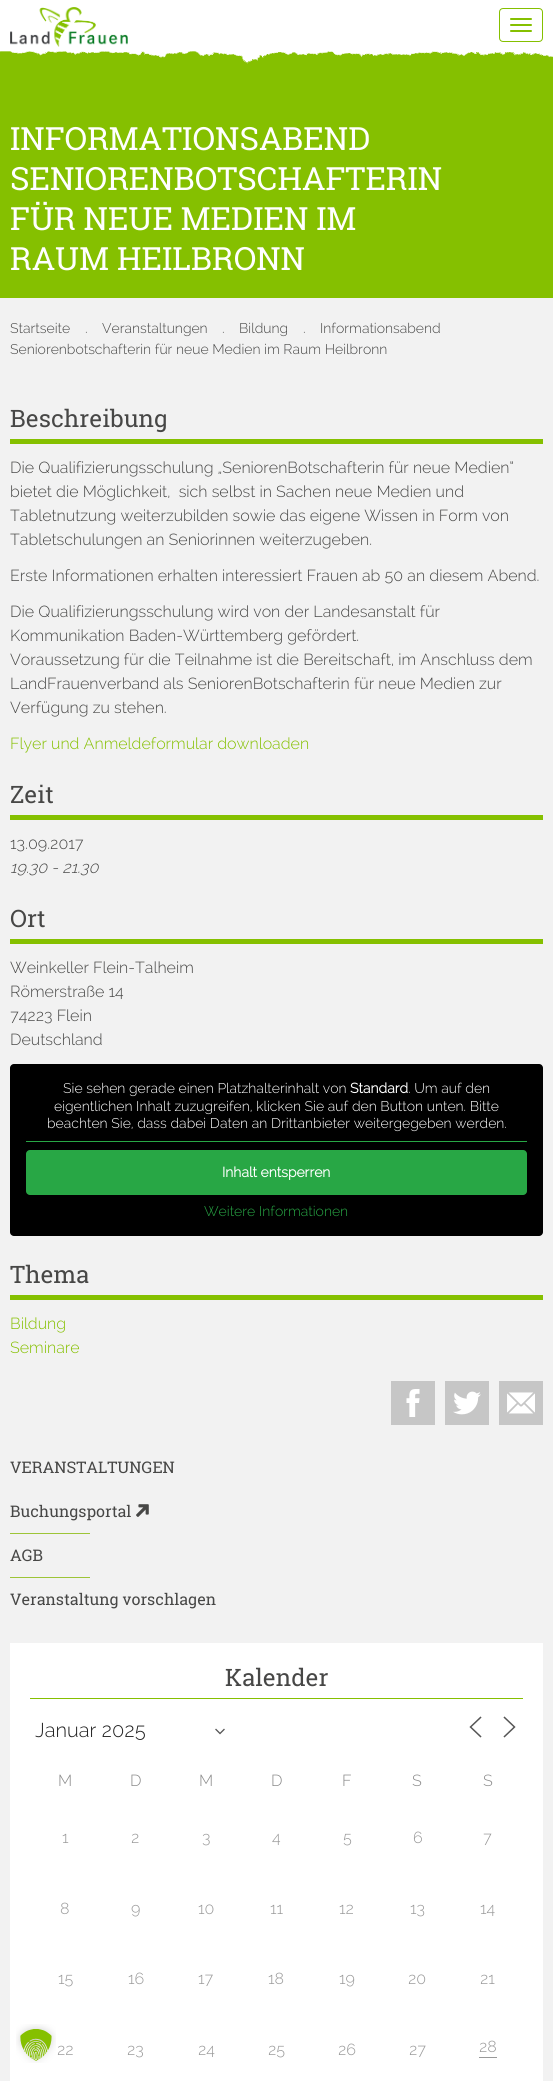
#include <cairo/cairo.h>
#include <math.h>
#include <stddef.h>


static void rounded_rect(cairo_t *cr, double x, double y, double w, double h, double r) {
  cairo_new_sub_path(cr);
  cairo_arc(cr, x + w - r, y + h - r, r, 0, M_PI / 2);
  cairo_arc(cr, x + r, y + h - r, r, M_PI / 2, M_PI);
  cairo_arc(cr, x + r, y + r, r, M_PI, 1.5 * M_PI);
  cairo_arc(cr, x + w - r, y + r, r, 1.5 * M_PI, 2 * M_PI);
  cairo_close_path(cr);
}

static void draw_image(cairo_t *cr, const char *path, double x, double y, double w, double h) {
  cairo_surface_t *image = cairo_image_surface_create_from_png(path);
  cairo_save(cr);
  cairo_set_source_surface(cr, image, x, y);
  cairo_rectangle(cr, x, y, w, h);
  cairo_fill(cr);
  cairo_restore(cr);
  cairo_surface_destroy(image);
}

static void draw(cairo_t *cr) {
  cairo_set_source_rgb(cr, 1, 1, 1);
  cairo_paint(cr);
  draw_image(cr, "images/1.png", 10, 7, 118, 40);
  rounded_rect(cr, 499.5, 8.5, 43, 33, 3.5);
  cairo_set_source_rgb(cr, 133 / 255.0, 192 / 255.0, 0);
  cairo_set_line_width(cr, 1);
  cairo_stroke(cr);
  rounded_rect(cr, 510, 18, 22, 2, 1);
  cairo_fill(cr);
  rounded_rect(cr, 510, 24, 22, 2, 1);
  cairo_fill(cr);
  rounded_rect(cr, 510, 30, 22, 2, 1);
  cairo_fill(cr);
  cairo_rectangle(cr, 0, 51, 553, 247);
  cairo_fill(cr);
  draw_image(cr, "images/2.png", 0, 50, 553, 14);
  cairo_set_source_rgb(cr, 242 / 255.0, 242 / 255.0, 242 / 255.0);
  cairo_rectangle(cr, 0, 298, 553, 1783);
  cairo_fill(cr);
  cairo_set_source_rgb(cr, 133 / 255.0, 192 / 255.0, 0);
  cairo_rectangle(cr, 10, 439, 533, 5);
  cairo_fill(cr);
  cairo_rectangle(cr, 10, 815, 533, 5);
  cairo_fill(cr);
  cairo_rectangle(cr, 10, 939, 533, 5);
  cairo_fill(cr);
  cairo_set_source_rgb(cr, 0, 0, 0);
  rounded_rect(cr, 10, 1064, 533, 172, 4);
  cairo_fill(cr);
  cairo_set_source_rgb(cr, 40 / 255.0, 167 / 255.0, 69 / 255.0);
  cairo_rectangle(cr, 26, 1141, 501, 1);
  cairo_fill(cr);
  rounded_rect(cr, 26, 1150, 501, 45, 4);
  cairo_fill(cr);
  cairo_set_source_rgb(cr, 133 / 255.0, 192 / 255.0, 0);
  cairo_rectangle(cr, 10, 1295, 533, 5);
  cairo_fill(cr);
  cairo_set_source_rgb(cr, 198 / 255.0, 198 / 255.0, 198 / 255.0);
  cairo_rectangle(cr, 391, 1381, 44, 44);
  cairo_fill(cr);
  draw_image(cr, "images/3.png", 406, 1389, 14, 28);
  cairo_rectangle(cr, 445, 1381, 44, 44);
  cairo_fill(cr);
  draw_image(cr, "images/4.png", 453, 1391, 28, 24);
  cairo_rectangle(cr, 499, 1381, 44, 44);
  cairo_fill(cr);
  draw_image(cr, "images/5.png", 507, 1392, 28, 22);
  draw_image(cr, "images/6.png", 136, 1504, 13, 13);
  cairo_set_source_rgb(cr, 157 / 255.0, 197 / 255.0, 55 / 255.0);
  cairo_rectangle(cr, 10, 1533, 80, 1);
  cairo_fill(cr);
  cairo_rectangle(cr, 10, 1577, 80, 1);
  cairo_fill(cr);
  cairo_set_source_rgb(cr, 1, 1, 1);
  cairo_rectangle(cr, 10, 1643, 533, 438);
  cairo_fill(cr);
  cairo_set_source_rgb(cr, 133 / 255.0, 192 / 255.0, 0);
  cairo_rectangle(cr, 30, 1698, 493, 1);
  cairo_fill(cr);
  cairo_new_path(cr);
  cairo_move_to(cr, 216, 1729.5);
  cairo_line_to(cr, 220, 1733.5);
  cairo_line_to(cr, 224, 1729.5);
  cairo_set_source_rgb(cr, 85 / 255.0, 85 / 255.0, 85 / 255.0);
  cairo_set_line_width(cr, 1.3);
  cairo_set_line_cap(cr, CAIRO_LINE_CAP_SQUARE);
  cairo_stroke(cr);
  cairo_new_path(cr);
  cairo_move_to(cr, 480.5, 1736.5);
  cairo_line_to(cr, 470.5, 1727);
  cairo_line_to(cr, 480.5, 1717.5);
  cairo_move_to(cr, 504.5, 1736.5);
  cairo_line_to(cr, 514.5, 1727);
  cairo_line_to(cr, 504.5, 1717.5);
  cairo_set_line_width(cr, 1.5);
  cairo_stroke(cr);
  cairo_set_source_rgb(cr, 153 / 255.0, 153 / 255.0, 153 / 255.0);
  cairo_rectangle(cr, 479, 2057, 18, 1);
  cairo_fill(cr);
  draw_image(cr, "images/7.png", 16, 2024, 40, 39);
  cairo_select_font_face(cr, "Roboto Slab", CAIRO_FONT_SLANT_NORMAL, CAIRO_FONT_WEIGHT_NORMAL);
  cairo_set_font_size(cr, 32);
  cairo_set_source_rgb(cr, 1, 1, 1);
  cairo_move_to(cr, 10, 150);
  cairo_show_text(cr, "INFORMATIONSABEND");
  cairo_move_to(cr, 10, 190);
  cairo_show_text(cr, "SENIORENBOTSCHAFTERIN");
  cairo_move_to(cr, 10, 230);
  cairo_show_text(cr, "FÜR NEUE MEDIEN IM");
  cairo_move_to(cr, 10, 270);
  cairo_show_text(cr, "RAUM HEILBRONN");
  cairo_select_font_face(cr, "Raleway Light", CAIRO_FONT_SLANT_NORMAL, CAIRO_FONT_WEIGHT_NORMAL);
  cairo_set_font_size(cr, 14);
  cairo_set_source_rgb(cr, 71 / 255.0, 71 / 255.0, 70 / 255.0);
  cairo_move_to(cr, 10, 333);
  cairo_show_text(cr, "Startseite");
  cairo_move_to(cr, 85, 333);
  cairo_show_text(cr, ".");
  cairo_move_to(cr, 102, 333);
  cairo_show_text(cr, "Veranstaltungen");
  cairo_move_to(cr, 222, 333);
  cairo_show_text(cr, ".");
  cairo_move_to(cr, 239, 333);
  cairo_show_text(cr, "Bildung");
  cairo_move_to(cr, 303, 333);
  cairo_show_text(cr, ".");
  cairo_move_to(cr, 320, 333);
  cairo_show_text(cr, "Informationsabend");
  cairo_move_to(cr, 10, 354);
  cairo_show_text(cr, "Seniorenbotschafterin für neue Medien im Raum Heilbronn");
  cairo_select_font_face(cr, "Roboto Slab", CAIRO_FONT_SLANT_NORMAL, CAIRO_FONT_WEIGHT_NORMAL);
  cairo_set_font_size(cr, 24);
  cairo_move_to(cr, 10, 427);
  cairo_show_text(cr, "Beschreibung");
  cairo_select_font_face(cr, "Raleway Light", CAIRO_FONT_SLANT_NORMAL, CAIRO_FONT_WEIGHT_NORMAL);
  cairo_set_font_size(cr, 16);
  cairo_move_to(cr, 10, 473);
  cairo_show_text(cr, "Die Qualifizierungsschulung „SeniorenBotschafterin für neue Medien“");
  cairo_move_to(cr, 10, 497);
  cairo_show_text(cr, "bietet die Möglichkeit,  sich selbst in Sachen neue Medien und");
  cairo_move_to(cr, 10, 521);
  cairo_show_text(cr, "Tabletnutzung weiterzubilden sowie das eigene Wissen in Form von");
  cairo_move_to(cr, 10, 545);
  cairo_show_text(cr, "Tabletschulungen an Seniorinnen weiterzugeben.");
  cairo_move_to(cr, 10, 581);
  cairo_show_text(cr, "Erste Informationen erhalten interessiert Frauen ab 50 an diesem Abend.");
  cairo_move_to(cr, 10, 617);
  cairo_show_text(cr, "Die Qualifizierungsschulung wird von der Landesanstalt für");
  cairo_move_to(cr, 10, 641);
  cairo_show_text(cr, "Kommunikation Baden-Württemberg gefördert.");
  cairo_move_to(cr, 10, 665);
  cairo_show_text(cr, "Voraussetzung für die Teilnahme ist die Bereitschaft, im Anschluss dem");
  cairo_move_to(cr, 10, 689);
  cairo_show_text(cr, "LandFrauenverband als SeniorenBotschafterin für neue Medien zur");
  cairo_move_to(cr, 10, 713);
  cairo_show_text(cr, "Verfügung zu stehen.");
  cairo_set_source_rgb(cr, 133 / 255.0, 192 / 255.0, 0);
  cairo_move_to(cr, 10, 749);
  cairo_show_text(cr, "Flyer und Anmeldeformular downloaden");
  cairo_select_font_face(cr, "Roboto Slab", CAIRO_FONT_SLANT_NORMAL, CAIRO_FONT_WEIGHT_NORMAL);
  cairo_set_font_size(cr, 24);
  cairo_set_source_rgb(cr, 71 / 255.0, 71 / 255.0, 70 / 255.0);
  cairo_move_to(cr, 10, 803);
  cairo_show_text(cr, "Zeit");
  cairo_select_font_face(cr, "Raleway Light", CAIRO_FONT_SLANT_NORMAL, CAIRO_FONT_WEIGHT_NORMAL);
  cairo_set_font_size(cr, 16);
  cairo_move_to(cr, 10, 849);
  cairo_show_text(cr, "13.09.2017");
  cairo_select_font_face(cr, "Raleway Light", CAIRO_FONT_SLANT_ITALIC, CAIRO_FONT_WEIGHT_NORMAL);
  cairo_move_to(cr, 10, 873);
  cairo_show_text(cr, "19.30 - 21.30");
  cairo_select_font_face(cr, "Roboto Slab", CAIRO_FONT_SLANT_NORMAL, CAIRO_FONT_WEIGHT_NORMAL);
  cairo_set_font_size(cr, 24);
  cairo_move_to(cr, 10, 927);
  cairo_show_text(cr, "Ort");
  cairo_select_font_face(cr, "Raleway Light", CAIRO_FONT_SLANT_NORMAL, CAIRO_FONT_WEIGHT_NORMAL);
  cairo_set_font_size(cr, 16);
  cairo_move_to(cr, 10, 973);
  cairo_show_text(cr, "Weinkeller Flein-Talheim");
  cairo_move_to(cr, 10, 997);
  cairo_show_text(cr, "Römerstraße 14");
  cairo_move_to(cr, 10, 1021);
  cairo_show_text(cr, "74223 Flein");
  cairo_move_to(cr, 10, 1045);
  cairo_show_text(cr, "Deutschland");
  cairo_set_font_size(cr, 14);
  cairo_set_source_rgb(cr, 1, 1, 1);
  cairo_move_to(cr, 63, 1093);
  cairo_show_text(cr, "Sie sehen gerade einen Platzhalterinhalt von");
  cairo_select_font_face(cr, "Raleway", CAIRO_FONT_SLANT_NORMAL, CAIRO_FONT_WEIGHT_BOLD);
  cairo_move_to(cr, 350, 1093);
  cairo_show_text(cr, "Standard");
  cairo_select_font_face(cr, "Raleway Light", CAIRO_FONT_SLANT_NORMAL, CAIRO_FONT_WEIGHT_NORMAL);
  cairo_move_to(cr, 408, 1093);
  cairo_show_text(cr, ". Um auf den");
  cairo_move_to(cr, 54, 1111);
  cairo_show_text(cr, "eigentlichen Inhalt zuzugreifen, klicken Sie auf den Button unten. Bitte");
  cairo_move_to(cr, 47, 1128);
  cairo_show_text(cr, "beachten Sie, dass dabei Daten an Drittanbieter weitergegeben werden.");
  cairo_select_font_face(cr, "Raleway", CAIRO_FONT_SLANT_NORMAL, CAIRO_FONT_WEIGHT_BOLD);
  cairo_move_to(cr, 222, 1177);
  cairo_show_text(cr, "Inhalt entsperren");
  cairo_select_font_face(cr, "Raleway Light", CAIRO_FONT_SLANT_NORMAL, CAIRO_FONT_WEIGHT_NORMAL);
  cairo_set_source_rgb(cr, 40 / 255.0, 167 / 255.0, 69 / 255.0);
  cairo_move_to(cr, 204, 1216);
  cairo_show_text(cr, "Weitere Informationen");
  cairo_select_font_face(cr, "Roboto Slab", CAIRO_FONT_SLANT_NORMAL, CAIRO_FONT_WEIGHT_NORMAL);
  cairo_set_font_size(cr, 24);
  cairo_set_source_rgb(cr, 71 / 255.0, 71 / 255.0, 70 / 255.0);
  cairo_move_to(cr, 10, 1283);
  cairo_show_text(cr, "Thema");
  cairo_select_font_face(cr, "Raleway Light", CAIRO_FONT_SLANT_NORMAL, CAIRO_FONT_WEIGHT_NORMAL);
  cairo_set_font_size(cr, 16);
  cairo_set_source_rgb(cr, 133 / 255.0, 192 / 255.0, 0);
  cairo_move_to(cr, 10, 1329);
  cairo_show_text(cr, "Bildung");
  cairo_move_to(cr, 10, 1353);
  cairo_show_text(cr, "Seminare");
  cairo_select_font_face(cr, "Roboto Slab", CAIRO_FONT_SLANT_NORMAL, CAIRO_FONT_WEIGHT_NORMAL);
  cairo_set_source_rgb(cr, 71 / 255.0, 71 / 255.0, 70 / 255.0);
  cairo_move_to(cr, 10, 1473);
  cairo_show_text(cr, "VERANSTALTUNGEN");
  cairo_move_to(cr, 10, 1517);
  cairo_show_text(cr, "Buchungsportal");
  cairo_move_to(cr, 10, 1561);
  cairo_show_text(cr, "AGB");
  cairo_move_to(cr, 10, 1605);
  cairo_show_text(cr, "Veranstaltung vorschlagen");
  cairo_set_font_size(cr, 24);
  cairo_move_to(cr, 225, 1686);
  cairo_show_text(cr, "Kalender");
  cairo_select_font_face(cr, "Raleway Light", CAIRO_FONT_SLANT_NORMAL, CAIRO_FONT_WEIGHT_NORMAL);
  cairo_set_font_size(cr, 20);
  cairo_set_source_rgb(cr, 33 / 255.0, 33 / 255.0, 33 / 255.0);
  cairo_move_to(cr, 35, 1737);
  cairo_show_text(cr, "Januar 2025");
  cairo_set_font_size(cr, 16);
  cairo_set_source_rgb(cr, 136 / 255.0, 136 / 255.0, 136 / 255.0);
  cairo_move_to(cr, 58, 1786);
  cairo_show_text(cr, "M");
  cairo_move_to(cr, 130, 1786);
  cairo_show_text(cr, "D");
  cairo_move_to(cr, 199, 1786);
  cairo_show_text(cr, "M");
  cairo_move_to(cr, 271, 1786);
  cairo_show_text(cr, "D");
  cairo_move_to(cr, 342, 1786);
  cairo_show_text(cr, "F");
  cairo_move_to(cr, 412, 1786);
  cairo_show_text(cr, "S");
  cairo_move_to(cr, 483, 1786);
  cairo_show_text(cr, "S");
  cairo_set_source_rgb(cr, 153 / 255.0, 153 / 255.0, 153 / 255.0);
  cairo_move_to(cr, 62, 1843);
  cairo_show_text(cr, "1");
  cairo_move_to(cr, 131, 1843);
  cairo_show_text(cr, "2");
  cairo_move_to(cr, 202, 1843);
  cairo_show_text(cr, "3");
  cairo_move_to(cr, 272, 1843);
  cairo_show_text(cr, "4");
  cairo_move_to(cr, 343, 1843);
  cairo_show_text(cr, "5");
  cairo_move_to(cr, 413, 1843);
  cairo_show_text(cr, "6");
  cairo_move_to(cr, 483, 1843);
  cairo_show_text(cr, "7");
  cairo_move_to(cr, 60, 1914);
  cairo_show_text(cr, "8");
  cairo_move_to(cr, 131, 1914);
  cairo_show_text(cr, "9");
  cairo_move_to(cr, 198, 1914);
  cairo_show_text(cr, "10");
  cairo_move_to(cr, 270, 1914);
  cairo_show_text(cr, "11");
  cairo_move_to(cr, 339, 1914);
  cairo_show_text(cr, "12");
  cairo_move_to(cr, 410, 1914);
  cairo_show_text(cr, "13");
  cairo_move_to(cr, 480, 1914);
  cairo_show_text(cr, "14");
  cairo_move_to(cr, 58, 1984);
  cairo_show_text(cr, "15");
  cairo_move_to(cr, 128, 1984);
  cairo_show_text(cr, "16");
  cairo_move_to(cr, 198, 1984);
  cairo_show_text(cr, "17");
  cairo_move_to(cr, 268, 1984);
  cairo_show_text(cr, "18");
  cairo_move_to(cr, 339, 1984);
  cairo_show_text(cr, "19");
  cairo_move_to(cr, 408, 1984);
  cairo_show_text(cr, "20");
  cairo_move_to(cr, 480, 1984);
  cairo_show_text(cr, "21");
  cairo_move_to(cr, 57, 2055);
  cairo_show_text(cr, "22");
  cairo_move_to(cr, 127, 2055);
  cairo_show_text(cr, "23");
  cairo_move_to(cr, 198, 2055);
  cairo_show_text(cr, "24");
  cairo_move_to(cr, 268, 2055);
  cairo_show_text(cr, "25");
  cairo_move_to(cr, 338, 2055);
  cairo_show_text(cr, "26");
  cairo_move_to(cr, 409, 2055);
  cairo_show_text(cr, "27");
  cairo_move_to(cr, 479, 2052);
  cairo_show_text(cr, "28");
}

int main(void) {
  cairo_surface_t *surface = cairo_image_surface_create(CAIRO_FORMAT_RGB24, 553, 2081);
  cairo_t *cr = cairo_create(surface);
  cairo_font_options_t *options = cairo_font_options_create();
  cairo_font_options_set_hint_metrics(options, CAIRO_HINT_METRICS_OFF);
  cairo_font_options_set_hint_style(options, CAIRO_HINT_STYLE_NONE);
  cairo_set_font_options(cr, options);
  cairo_set_miter_limit(cr, 4);
  draw(cr);
  cairo_surface_write_to_png(surface, "out.png");
  cairo_font_options_destroy(options);
  cairo_destroy(cr);
  cairo_surface_destroy(surface);
  return 0;
}
